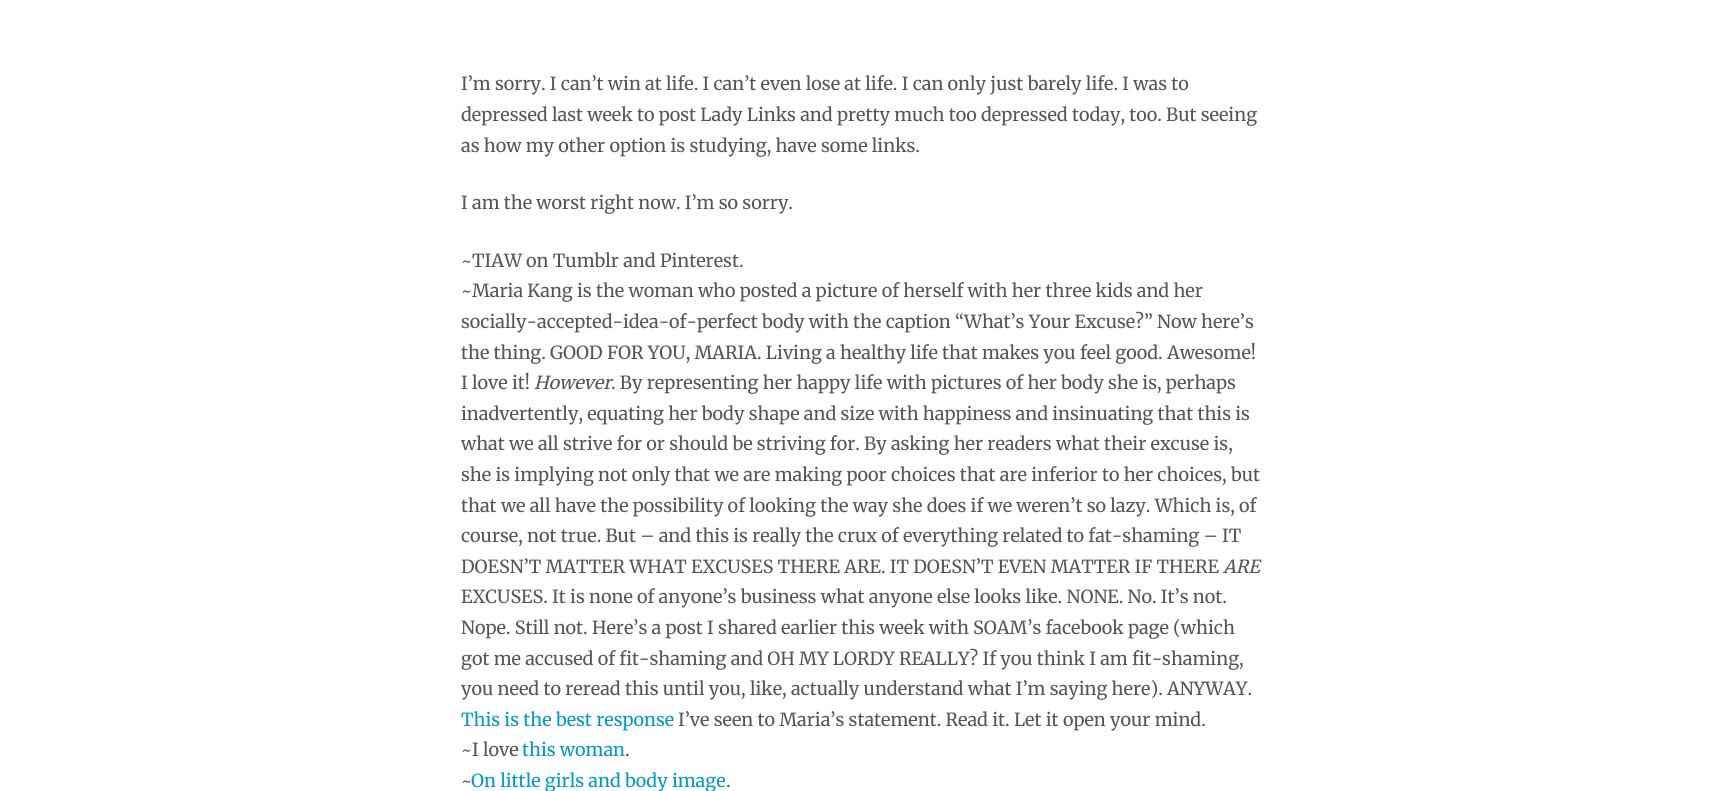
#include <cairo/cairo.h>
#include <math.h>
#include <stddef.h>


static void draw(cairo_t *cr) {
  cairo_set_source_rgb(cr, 1, 1, 1);
  cairo_paint(cr);
  cairo_select_font_face(cr, "Merriweather", CAIRO_FONT_SLANT_NORMAL, CAIRO_FONT_WEIGHT_NORMAL);
  cairo_set_font_size(cr, 18);
  cairo_set_source_rgb(cr, 85 / 255.0, 85 / 255.0, 85 / 255.0);
  cairo_move_to(cr, 461, 90);
  cairo_show_text(cr, "I’m sorry. I can’t win at life. I can’t even lose at life. I can only just barely life. I was to");
  cairo_move_to(cr, 461, 121);
  cairo_show_text(cr, "depressed last week to post Lady Links and pretty much too depressed today, too. But seeing");
  cairo_move_to(cr, 461, 152);
  cairo_show_text(cr, "as how my other option is studying, have some links.");
  cairo_move_to(cr, 461, 209);
  cairo_show_text(cr, "I am the worst right now. I’m so sorry.");
  cairo_move_to(cr, 461, 267);
  cairo_show_text(cr, "~TIAW on Tumblr and Pinterest.");
  cairo_move_to(cr, 461, 297);
  cairo_show_text(cr, "~Maria Kang is the woman who posted a picture of herself with her three kids and her");
  cairo_move_to(cr, 461, 328);
  cairo_show_text(cr, "socially-accepted-idea-of-perfect body with the caption “What’s Your Excuse?” Now here’s");
  cairo_move_to(cr, 461, 359);
  cairo_show_text(cr, "the thing. GOOD FOR YOU, MARIA. Living a healthy life that makes you feel good. Awesome!");
  cairo_move_to(cr, 461, 389);
  cairo_show_text(cr, "I love it!");
  cairo_select_font_face(cr, "Merriweather", CAIRO_FONT_SLANT_ITALIC, CAIRO_FONT_WEIGHT_NORMAL);
  cairo_move_to(cr, 534, 389);
  cairo_show_text(cr, "However");
  cairo_select_font_face(cr, "Merriweather", CAIRO_FONT_SLANT_NORMAL, CAIRO_FONT_WEIGHT_NORMAL);
  cairo_move_to(cr, 611, 389);
  cairo_show_text(cr, ". By representing her happy life with pictures of her body she is, perhaps");
  cairo_move_to(cr, 461, 420);
  cairo_show_text(cr, "inadvertently, equating her body shape and size with happiness and insinuating that this is");
  cairo_move_to(cr, 461, 450);
  cairo_show_text(cr, "what we all strive for or should be striving for. By asking her readers what their excuse is,");
  cairo_move_to(cr, 461, 481);
  cairo_show_text(cr, "she is implying not only that we are making poor choices that are inferior to her choices, but");
  cairo_move_to(cr, 461, 512);
  cairo_show_text(cr, "that we all have the possibility of looking the way she does if we weren’t so lazy. Which is, of");
  cairo_move_to(cr, 461, 542);
  cairo_show_text(cr, "course, not true. But – and this is really the crux of everything related to fat-shaming – IT");
  cairo_move_to(cr, 461, 573);
  cairo_show_text(cr, "DOESN’T MATTER WHAT EXCUSES THERE ARE. IT DOESN’T EVEN MATTER IF THERE");
  cairo_select_font_face(cr, "Merriweather", CAIRO_FONT_SLANT_ITALIC, CAIRO_FONT_WEIGHT_NORMAL);
  cairo_move_to(cr, 1223, 573);
  cairo_show_text(cr, "ARE");
  cairo_select_font_face(cr, "Merriweather", CAIRO_FONT_SLANT_NORMAL, CAIRO_FONT_WEIGHT_NORMAL);
  cairo_move_to(cr, 461, 603);
  cairo_show_text(cr, "EXCUSES. It is none of anyone’s business what anyone else looks like. NONE. No. It’s not.");
  cairo_move_to(cr, 461, 634);
  cairo_show_text(cr, "Nope. Still not. Here’s a post I shared earlier this week with SOAM’s facebook page (which");
  cairo_move_to(cr, 461, 665);
  cairo_show_text(cr, "got me accused of fit-shaming and OH MY LORDY REALLY? If you think I am fit-shaming,");
  cairo_move_to(cr, 461, 695);
  cairo_show_text(cr, "you need to reread this until you, like, actually understand what I’m saying here). ANYWAY.");
  cairo_set_source_rgb(cr, 0, 153 / 255.0, 204 / 255.0);
  cairo_move_to(cr, 461, 726);
  cairo_show_text(cr, "This is the best response");
  cairo_set_source_rgb(cr, 85 / 255.0, 85 / 255.0, 85 / 255.0);
  cairo_move_to(cr, 678, 726);
  cairo_show_text(cr, "I’ve seen to Maria’s statement. Read it. Let it open your mind.");
  cairo_move_to(cr, 461, 756);
  cairo_show_text(cr, "~I love");
  cairo_set_source_rgb(cr, 0, 153 / 255.0, 204 / 255.0);
  cairo_move_to(cr, 522, 756);
  cairo_show_text(cr, "this woman");
  cairo_set_source_rgb(cr, 85 / 255.0, 85 / 255.0, 85 / 255.0);
  cairo_move_to(cr, 625, 756);
  cairo_show_text(cr, ".");
  cairo_move_to(cr, 461, 787);
  cairo_show_text(cr, "~");
  cairo_set_source_rgb(cr, 0, 153 / 255.0, 204 / 255.0);
  cairo_move_to(cr, 471, 787);
  cairo_show_text(cr, "On little girls and body image");
  cairo_set_source_rgb(cr, 85 / 255.0, 85 / 255.0, 85 / 255.0);
  cairo_move_to(cr, 726, 787);
  cairo_show_text(cr, ".");
}

int main(void) {
  cairo_surface_t *surface = cairo_image_surface_create(CAIRO_FORMAT_RGB24, 1721, 791);
  cairo_t *cr = cairo_create(surface);
  cairo_font_options_t *options = cairo_font_options_create();
  cairo_font_options_set_hint_metrics(options, CAIRO_HINT_METRICS_OFF);
  cairo_font_options_set_hint_style(options, CAIRO_HINT_STYLE_NONE);
  cairo_set_font_options(cr, options);
  cairo_set_miter_limit(cr, 4);
  draw(cr);
  cairo_surface_write_to_png(surface, "out.png");
  cairo_font_options_destroy(options);
  cairo_destroy(cr);
  cairo_surface_destroy(surface);
  return 0;
}
